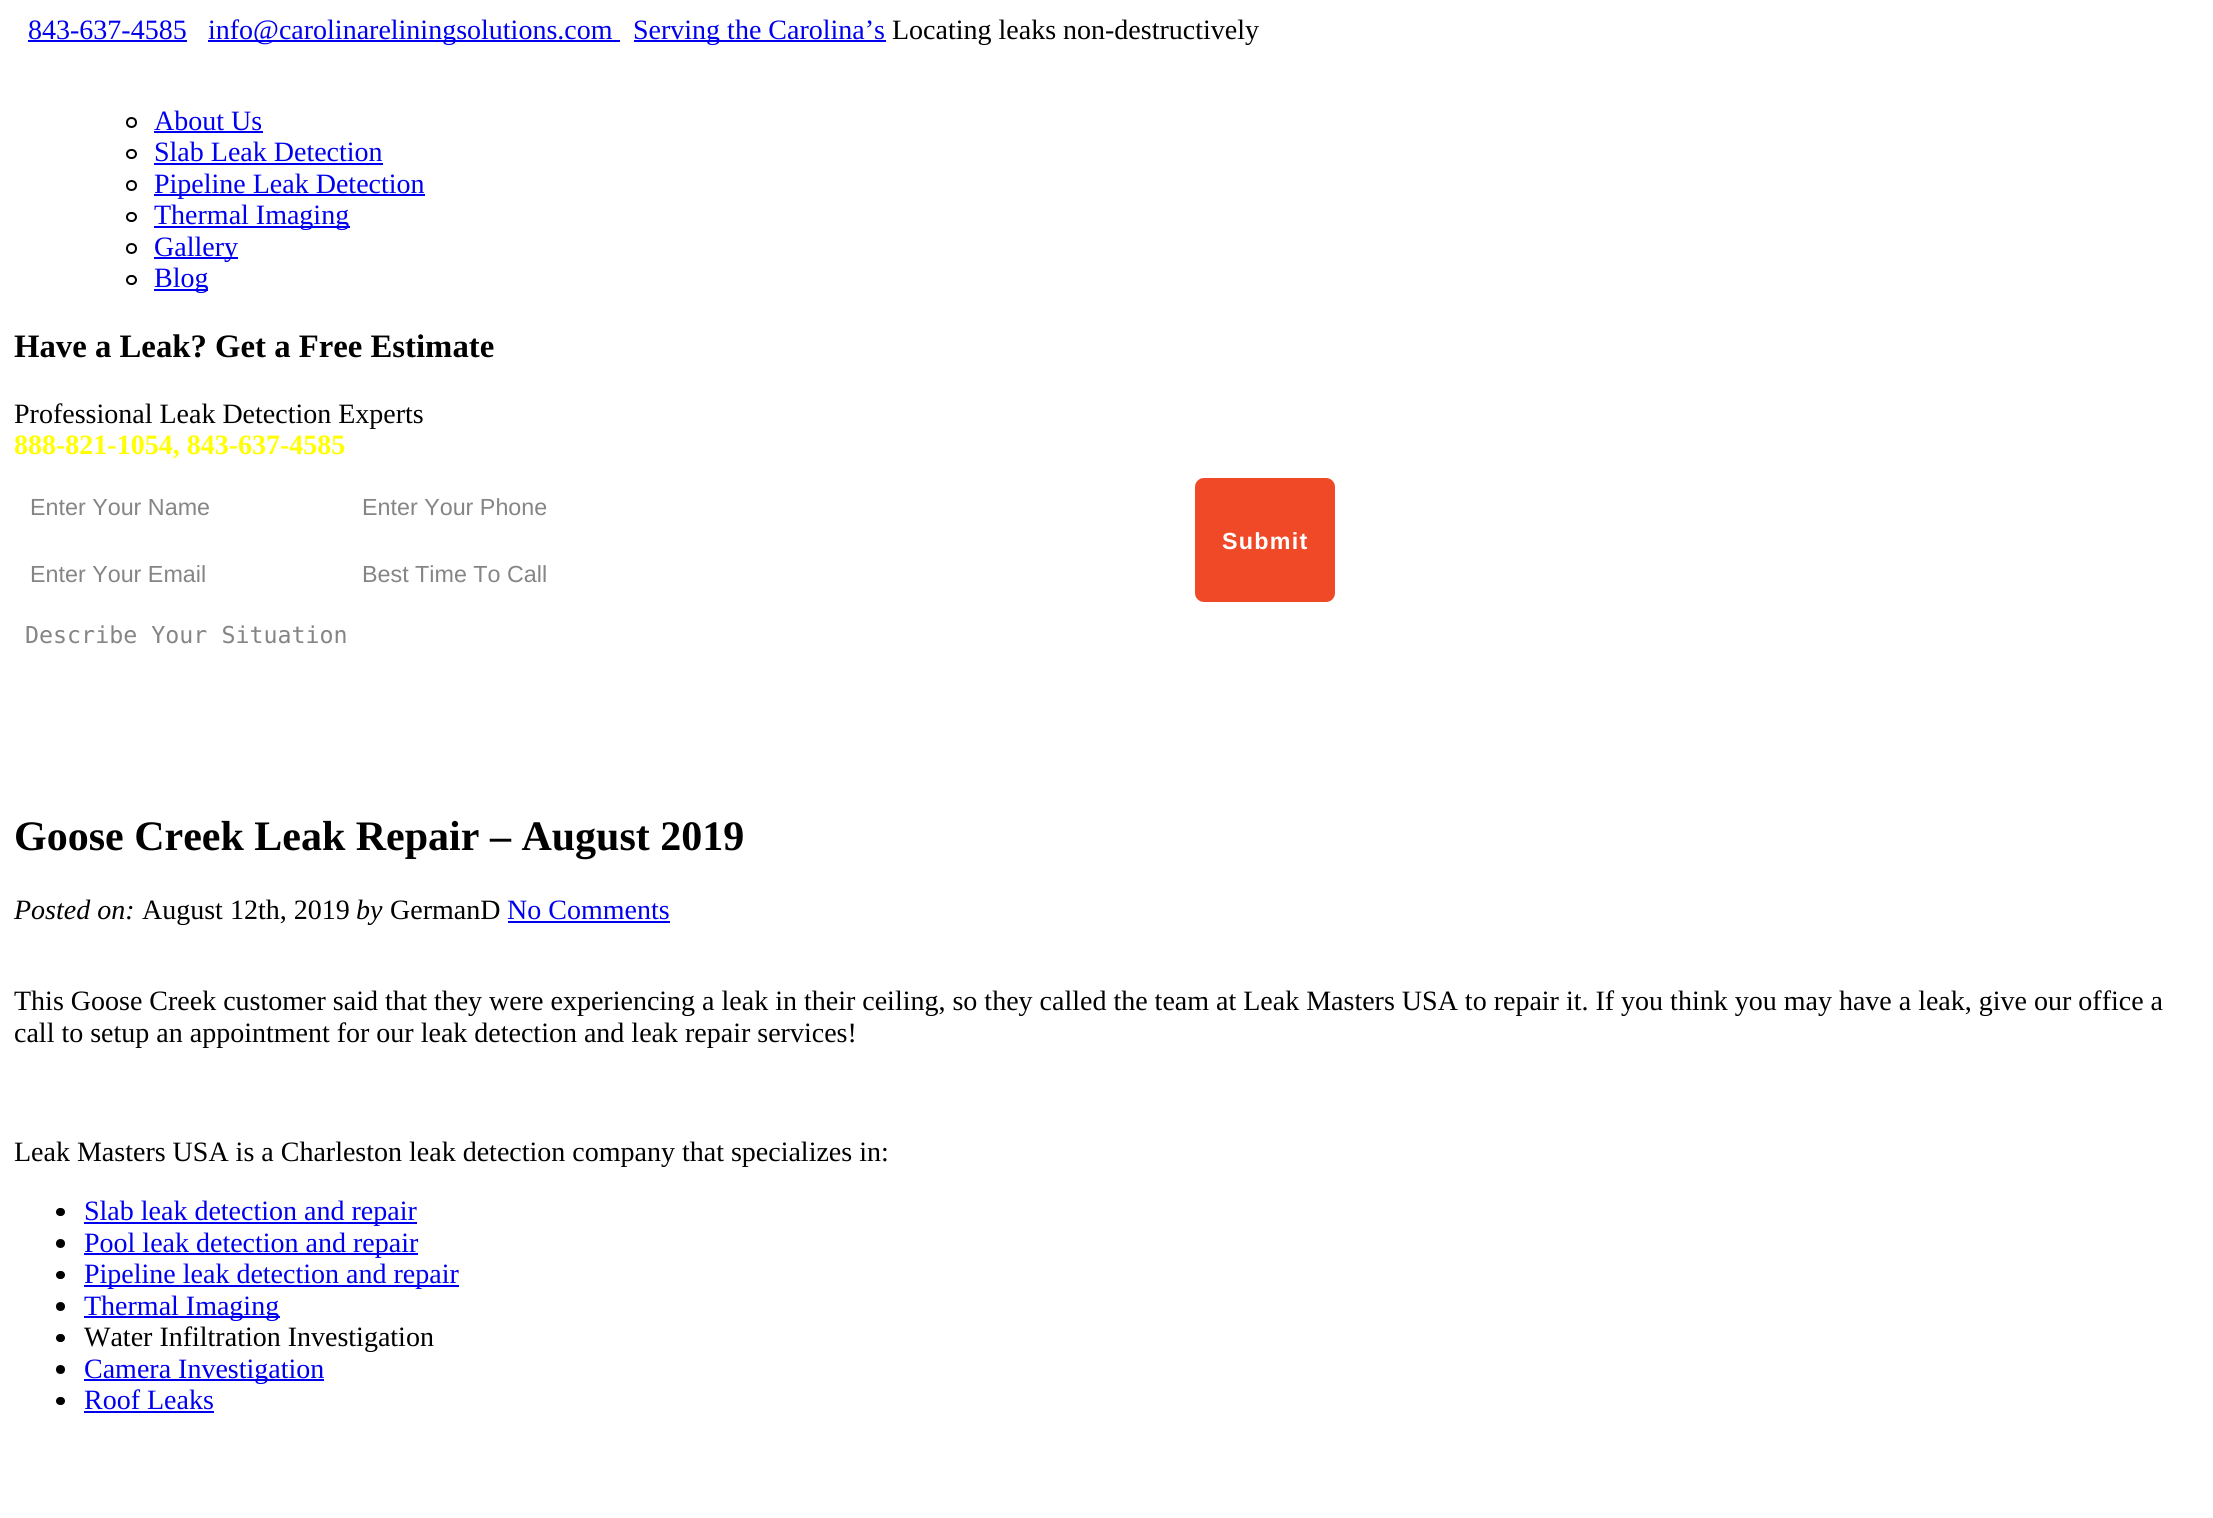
#include <cairo/cairo.h>
#include <math.h>
#include <stddef.h>


static void draw_spaced(cairo_t *cr, double x, double y, const char *s, double letter, double word) {
  cairo_move_to(cr, x, y);
  while (*s) {
    char ch[5] = {0};
    int n = 0;
    do ch[n++] = *s++; while ((*s & 0xC0) == 0x80);
    cairo_show_text(cr, ch);
    cairo_rel_move_to(cr, letter + word * (*ch == ' '), 0);
  }
}

static void rounded_rect(cairo_t *cr, double x, double y, double w, double h, double r) {
  cairo_new_sub_path(cr);
  cairo_arc(cr, x + w - r, y + h - r, r, 0, M_PI / 2);
  cairo_arc(cr, x + r, y + h - r, r, M_PI / 2, M_PI);
  cairo_arc(cr, x + r, y + r, r, M_PI, 1.5 * M_PI);
  cairo_arc(cr, x + w - r, y + r, r, 1.5 * M_PI, 2 * M_PI);
  cairo_close_path(cr);
}

static void draw(cairo_t *cr) {
  cairo_set_source_rgb(cr, 1, 1, 1);
  cairo_paint(cr);
  cairo_set_source_rgb(cr, 0, 0, 238 / 255.0);
  cairo_rectangle(cr, 28, 40, 159, 2);
  cairo_fill(cr);
  cairo_rectangle(cr, 208, 40, 412, 2);
  cairo_fill(cr);
  cairo_rectangle(cr, 634, 40, 252, 2);
  cairo_fill(cr);
  cairo_arc(cr, 131.5, 122.5, 4.5, 0, 2 * M_PI);
  cairo_set_source_rgb(cr, 0, 0, 0);
  cairo_stroke(cr);
  cairo_set_source_rgb(cr, 0, 0, 238 / 255.0);
  cairo_rectangle(cr, 154, 131, 109, 2);
  cairo_fill(cr);
  rounded_rect(cr, 127, 150, 9, 8, 4);
  cairo_set_source_rgb(cr, 0, 0, 0);
  cairo_stroke(cr);
  cairo_set_source_rgb(cr, 0, 0, 238 / 255.0);
  cairo_rectangle(cr, 154, 163, 229, 2);
  cairo_fill(cr);
  cairo_arc(cr, 131.5, 185.5, 4.5, 0, 2 * M_PI);
  cairo_set_source_rgb(cr, 0, 0, 0);
  cairo_stroke(cr);
  cairo_set_source_rgb(cr, 0, 0, 238 / 255.0);
  cairo_rectangle(cr, 154, 194, 271, 2);
  cairo_fill(cr);
  rounded_rect(cr, 127, 213, 9, 8, 4);
  cairo_set_source_rgb(cr, 0, 0, 0);
  cairo_stroke(cr);
  cairo_set_source_rgb(cr, 0, 0, 238 / 255.0);
  cairo_rectangle(cr, 154, 226, 196, 2);
  cairo_fill(cr);
  cairo_arc(cr, 131.5, 248.5, 4.5, 0, 2 * M_PI);
  cairo_set_source_rgb(cr, 0, 0, 0);
  cairo_stroke(cr);
  cairo_set_source_rgb(cr, 0, 0, 238 / 255.0);
  cairo_rectangle(cr, 154, 257, 84, 2);
  cairo_fill(cr);
  rounded_rect(cr, 127, 276, 9, 8, 4);
  cairo_set_source_rgb(cr, 0, 0, 0);
  cairo_stroke(cr);
  cairo_set_source_rgb(cr, 0, 0, 238 / 255.0);
  cairo_rectangle(cr, 154, 289, 54, 2);
  cairo_fill(cr);
  cairo_set_source_rgb(cr, 240 / 255.0, 73 / 255.0, 40 / 255.0);
  rounded_rect(cr, 1196, 479, 138, 122, 8);
  cairo_fill_preserve(cr);
  cairo_stroke(cr);
  cairo_set_source_rgb(cr, 0, 0, 238 / 255.0);
  cairo_rectangle(cr, 508, 921, 162, 2);
  cairo_fill(cr);
  cairo_set_source_rgb(cr, 0, 0, 0);
  rounded_rect(cr, 56, 1208, 9, 8, 4);
  cairo_fill(cr);
  cairo_set_source_rgb(cr, 0, 0, 238 / 255.0);
  cairo_rectangle(cr, 84, 1222, 333, 2);
  cairo_fill(cr);
  cairo_set_source_rgb(cr, 0, 0, 0);
  cairo_arc(cr, 60.5, 1243.5, 4.5, 0, 2 * M_PI);
  cairo_fill(cr);
  cairo_set_source_rgb(cr, 0, 0, 238 / 255.0);
  cairo_rectangle(cr, 84, 1253, 334, 2);
  cairo_fill(cr);
  cairo_set_source_rgb(cr, 0, 0, 0);
  rounded_rect(cr, 56, 1271, 9, 8, 4);
  cairo_fill(cr);
  cairo_set_source_rgb(cr, 0, 0, 238 / 255.0);
  cairo_rectangle(cr, 84, 1285, 375, 2);
  cairo_fill(cr);
  cairo_set_source_rgb(cr, 0, 0, 0);
  cairo_arc(cr, 60.5, 1306.5, 4.5, 0, 2 * M_PI);
  cairo_fill(cr);
  cairo_set_source_rgb(cr, 0, 0, 238 / 255.0);
  cairo_rectangle(cr, 84, 1316, 196, 2);
  cairo_fill(cr);
  cairo_set_source_rgb(cr, 0, 0, 0);
  rounded_rect(cr, 56, 1334, 9, 8, 4);
  cairo_fill(cr);
  cairo_arc(cr, 60.5, 1369.5, 4.5, 0, 2 * M_PI);
  cairo_fill(cr);
  cairo_set_source_rgb(cr, 0, 0, 238 / 255.0);
  cairo_rectangle(cr, 84, 1379, 240, 2);
  cairo_fill(cr);
  cairo_set_source_rgb(cr, 0, 0, 0);
  rounded_rect(cr, 56, 1397, 9, 8, 4);
  cairo_fill(cr);
  cairo_set_source_rgb(cr, 0, 0, 238 / 255.0);
  cairo_rectangle(cr, 84, 1411, 130, 2);
  cairo_fill(cr);
  cairo_select_font_face(cr, "Liberation Serif", CAIRO_FONT_SLANT_NORMAL, CAIRO_FONT_WEIGHT_NORMAL);
  cairo_set_font_size(cr, 28);
  cairo_move_to(cr, 28, 39);
  cairo_show_text(cr, "843-637-4585");
  cairo_move_to(cr, 208, 39);
  cairo_show_text(cr, "info@carolinareliningsolutions.com");
  cairo_move_to(cr, 633, 39);
  cairo_show_text(cr, "Serving the Carolina’s");
  cairo_set_source_rgb(cr, 0, 0, 0);
  cairo_move_to(cr, 892, 39);
  cairo_show_text(cr, "Locating leaks non-destructively");
  cairo_set_source_rgb(cr, 0, 0, 238 / 255.0);
  cairo_move_to(cr, 154, 130);
  cairo_show_text(cr, "About Us");
  cairo_move_to(cr, 154, 161);
  cairo_show_text(cr, "Slab Leak Detection");
  cairo_move_to(cr, 154, 193);
  cairo_show_text(cr, "Pipeline Leak Detection");
  cairo_move_to(cr, 154, 224);
  cairo_show_text(cr, "Thermal Imaging");
  cairo_move_to(cr, 154, 256);
  cairo_show_text(cr, "Gallery");
  cairo_move_to(cr, 154, 287);
  cairo_show_text(cr, "Blog");
  cairo_select_font_face(cr, "Liberation Serif", CAIRO_FONT_SLANT_NORMAL, CAIRO_FONT_WEIGHT_BOLD);
  cairo_set_font_size(cr, 32.75);
  cairo_set_source_rgb(cr, 0, 0, 0);
  cairo_move_to(cr, 14, 357);
  cairo_show_text(cr, "Have a Leak? Get a Free Estimate");
  cairo_select_font_face(cr, "Liberation Serif", CAIRO_FONT_SLANT_NORMAL, CAIRO_FONT_WEIGHT_NORMAL);
  cairo_set_font_size(cr, 28);
  cairo_move_to(cr, 14, 423);
  cairo_show_text(cr, "Professional Leak Detection Experts");
  cairo_select_font_face(cr, "Liberation Serif", CAIRO_FONT_SLANT_NORMAL, CAIRO_FONT_WEIGHT_BOLD);
  cairo_set_source_rgb(cr, 1, 1, 0);
  cairo_move_to(cr, 14, 454);
  cairo_show_text(cr, "888-821-1054, 843-637-4585");
  cairo_select_font_face(cr, "Liberation Sans", CAIRO_FONT_SLANT_NORMAL, CAIRO_FONT_WEIGHT_NORMAL);
  cairo_set_font_size(cr, 23.3);
  cairo_set_source_rgb(cr, 133 / 255.0, 133 / 255.0, 133 / 255.0);
  cairo_move_to(cr, 30, 515);
  cairo_show_text(cr, "Enter Your Name");
  cairo_move_to(cr, 362, 515);
  cairo_show_text(cr, "Enter Your Phone");
  cairo_select_font_face(cr, "Liberation Sans", CAIRO_FONT_SLANT_NORMAL, CAIRO_FONT_WEIGHT_BOLD);
  cairo_set_source_rgb(cr, 1, 1, 1);
  draw_spaced(cr, 1222, 549, "Submit", 1.25, 0);
  cairo_select_font_face(cr, "Liberation Sans", CAIRO_FONT_SLANT_NORMAL, CAIRO_FONT_WEIGHT_NORMAL);
  cairo_set_source_rgb(cr, 133 / 255.0, 133 / 255.0, 133 / 255.0);
  cairo_move_to(cr, 30, 582);
  cairo_show_text(cr, "Enter Your Email");
  cairo_move_to(cr, 362, 582);
  cairo_show_text(cr, "Best Time To Call");
  cairo_select_font_face(cr, "DejaVu Sans Mono", CAIRO_FONT_SLANT_NORMAL, CAIRO_FONT_WEIGHT_NORMAL);
  cairo_move_to(cr, 25, 643);
  cairo_show_text(cr, "Describe Your Situation");
  cairo_select_font_face(cr, "Liberation Serif", CAIRO_FONT_SLANT_NORMAL, CAIRO_FONT_WEIGHT_BOLD);
  cairo_set_font_size(cr, 42);
  cairo_set_source_rgb(cr, 0, 0, 0);
  cairo_move_to(cr, 14, 850);
  cairo_show_text(cr, "Goose Creek Leak Repair – August 2019");
  cairo_select_font_face(cr, "Liberation Serif", CAIRO_FONT_SLANT_ITALIC, CAIRO_FONT_WEIGHT_NORMAL);
  cairo_set_font_size(cr, 28);
  cairo_move_to(cr, 14, 919);
  cairo_show_text(cr, "Posted on:");
  cairo_select_font_face(cr, "Liberation Serif", CAIRO_FONT_SLANT_NORMAL, CAIRO_FONT_WEIGHT_NORMAL);
  cairo_move_to(cr, 142, 919);
  cairo_show_text(cr, "August 12th, 2019");
  cairo_select_font_face(cr, "Liberation Serif", CAIRO_FONT_SLANT_ITALIC, CAIRO_FONT_WEIGHT_NORMAL);
  cairo_move_to(cr, 356, 919);
  cairo_show_text(cr, "by");
  cairo_select_font_face(cr, "Liberation Serif", CAIRO_FONT_SLANT_NORMAL, CAIRO_FONT_WEIGHT_NORMAL);
  cairo_move_to(cr, 390, 919);
  cairo_show_text(cr, "GermanD");
  cairo_set_source_rgb(cr, 0, 0, 238 / 255.0);
  cairo_move_to(cr, 507, 919);
  cairo_show_text(cr, "No Comments");
  cairo_set_source_rgb(cr, 0, 0, 0);
  cairo_move_to(cr, 14, 1010);
  cairo_show_text(cr, "This Goose Creek customer said that they were experiencing a leak in their ceiling, so they called the team at Leak Masters USA to repair it. If you think you may have a leak, give our office a");
  cairo_move_to(cr, 14, 1042);
  cairo_show_text(cr, "call to setup an appointment for our leak detection and leak repair services!");
  cairo_move_to(cr, 14, 1161);
  cairo_show_text(cr, "Leak Masters USA is a Charleston leak detection company that specializes in:");
  cairo_set_source_rgb(cr, 0, 0, 238 / 255.0);
  cairo_move_to(cr, 84, 1220);
  cairo_show_text(cr, "Slab leak detection and repair");
  cairo_move_to(cr, 84, 1252);
  cairo_show_text(cr, "Pool leak detection and repair");
  cairo_move_to(cr, 84, 1283);
  cairo_show_text(cr, "Pipeline leak detection and repair");
  cairo_move_to(cr, 84, 1315);
  cairo_show_text(cr, "Thermal Imaging");
  cairo_set_source_rgb(cr, 0, 0, 0);
  cairo_move_to(cr, 84, 1346);
  cairo_show_text(cr, "Water Infiltration Investigation");
  cairo_set_source_rgb(cr, 0, 0, 238 / 255.0);
  cairo_move_to(cr, 84, 1378);
  cairo_show_text(cr, "Camera Investigation");
  cairo_move_to(cr, 84, 1409);
  cairo_show_text(cr, "Roof Leaks");
}

int main(void) {
  cairo_surface_t *surface = cairo_image_surface_create(CAIRO_FORMAT_RGB24, 2213, 1518);
  cairo_t *cr = cairo_create(surface);
  cairo_font_options_t *options = cairo_font_options_create();
  cairo_font_options_set_hint_metrics(options, CAIRO_HINT_METRICS_OFF);
  cairo_font_options_set_hint_style(options, CAIRO_HINT_STYLE_NONE);
  cairo_set_font_options(cr, options);
  cairo_set_miter_limit(cr, 4);
  draw(cr);
  cairo_surface_write_to_png(surface, "out.png");
  cairo_font_options_destroy(options);
  cairo_destroy(cr);
  cairo_surface_destroy(surface);
  return 0;
}
